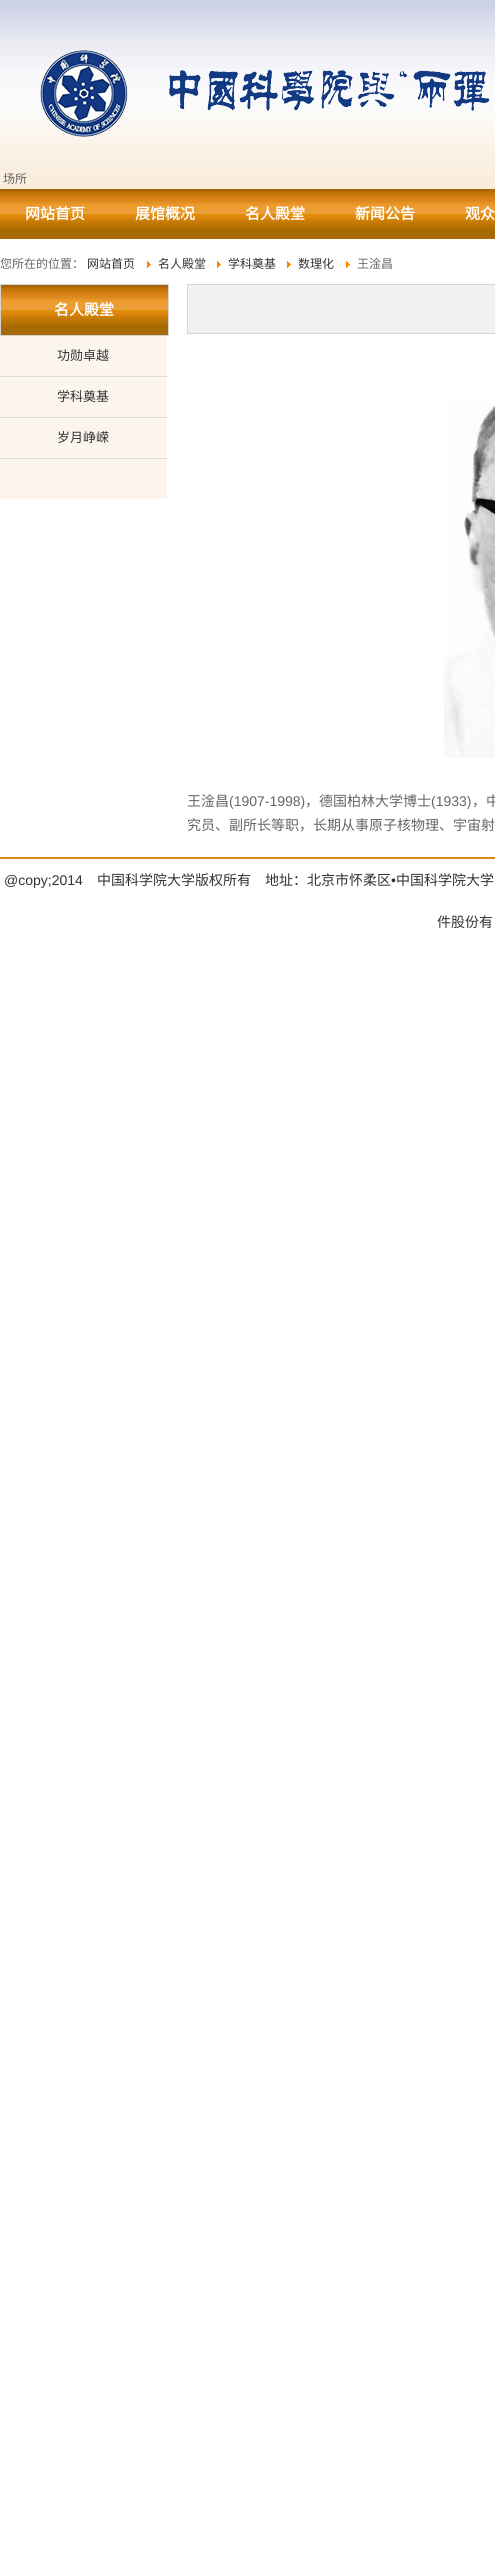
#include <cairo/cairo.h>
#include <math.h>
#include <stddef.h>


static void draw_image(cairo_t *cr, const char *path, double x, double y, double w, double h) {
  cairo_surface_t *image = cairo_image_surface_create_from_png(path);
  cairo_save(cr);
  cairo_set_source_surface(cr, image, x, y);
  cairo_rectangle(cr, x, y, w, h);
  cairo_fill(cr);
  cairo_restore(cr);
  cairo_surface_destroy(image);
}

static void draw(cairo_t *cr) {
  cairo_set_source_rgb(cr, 1, 1, 1);
  cairo_paint(cr);
  draw_image(cr, "images/1.png", 0, 0, 495, 189);
  draw_image(cr, "images/2.png", 40, 50, 88, 87);
  draw_image(cr, "images/3.png", 169, 69, 321, 42);
  draw_image(cr, "images/4.png", 0, 189, 495, 50);
  draw_image(cr, "images/5.png", 147, 261, 4, 7);
  draw_image(cr, "images/5.png", 217, 261, 4, 7);
  draw_image(cr, "images/5.png", 287, 261, 4, 7);
  draw_image(cr, "images/5.png", 346, 261, 4, 7);
  draw_image(cr, "images/6.png", 1, 285, 167, 50);
  cairo_rectangle(cr, 0.5, 284.5, 168, 51);
  cairo_set_source_rgb(cr, 212 / 255.0, 212 / 255.0, 212 / 255.0);
  cairo_set_line_width(cr, 1);
  cairo_stroke(cr);
  cairo_set_source_rgb(cr, 252 / 255.0, 245 / 255.0, 237 / 255.0);
  cairo_rectangle(cr, 0, 336, 167, 163);
  cairo_fill(cr);
  cairo_new_path(cr);
  cairo_move_to(cr, 0, 376.5);
  cairo_line_to(cr, 167, 376.5);
  cairo_set_source_rgb(cr, 202 / 255.0, 199 / 255.0, 195 / 255.0);
  cairo_set_dash(cr, (double[]){1, 1}, 2, 0);
  cairo_stroke(cr);
  cairo_new_path(cr);
  cairo_move_to(cr, 0, 417.5);
  cairo_line_to(cr, 167, 417.5);
  cairo_stroke(cr);
  cairo_new_path(cr);
  cairo_move_to(cr, 0, 458.5);
  cairo_line_to(cr, 167, 458.5);
  cairo_stroke(cr);
  cairo_set_source_rgb(cr, 241 / 255.0, 241 / 255.0, 241 / 255.0);
  cairo_rectangle(cr, 187.5, 284.5, 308, 49);
  cairo_fill_preserve(cr);
  cairo_set_source_rgb(cr, 212 / 255.0, 212 / 255.0, 212 / 255.0);
  cairo_set_dash(cr, NULL, 0, 0);
  cairo_stroke(cr);
  draw_image(cr, "images/7.png", 444, 399, 51, 359);
  cairo_set_source_rgb(cr, 218 / 255.0, 133 / 255.0, 22 / 255.0);
  cairo_rectangle(cr, 0, 857, 495, 2);
  cairo_fill(cr);
  cairo_select_font_face(cr, "Noto Sans CJK SC", CAIRO_FONT_SLANT_NORMAL, CAIRO_FONT_WEIGHT_NORMAL);
  cairo_set_font_size(cr, 12);
  cairo_set_source_rgb(cr, 102 / 255.0, 102 / 255.0, 102 / 255.0);
  cairo_move_to(cr, 3, 183);
  cairo_show_text(cr, "场所");
  cairo_select_font_face(cr, "Noto Sans CJK SC", CAIRO_FONT_SLANT_NORMAL, CAIRO_FONT_WEIGHT_BOLD);
  cairo_set_font_size(cr, 15);
  cairo_set_source_rgb(cr, 1, 1, 1);
  cairo_move_to(cr, 25, 219);
  cairo_show_text(cr, "网站首页");
  cairo_move_to(cr, 135, 219);
  cairo_show_text(cr, "展馆概况");
  cairo_move_to(cr, 245, 219);
  cairo_show_text(cr, "名人殿堂");
  cairo_move_to(cr, 355, 219);
  cairo_show_text(cr, "新闻公告");
  cairo_move_to(cr, 465, 219);
  cairo_show_text(cr, "观众");
  cairo_select_font_face(cr, "Noto Sans CJK SC", CAIRO_FONT_SLANT_NORMAL, CAIRO_FONT_WEIGHT_NORMAL);
  cairo_set_font_size(cr, 12);
  cairo_set_source_rgb(cr, 102 / 255.0, 102 / 255.0, 102 / 255.0);
  cairo_move_to(cr, 0, 268);
  cairo_show_text(cr, "您所在的位置：");
  cairo_set_source_rgb(cr, 51 / 255.0, 51 / 255.0, 51 / 255.0);
  cairo_move_to(cr, 87, 268);
  cairo_show_text(cr, "网站首页");
  cairo_move_to(cr, 158, 268);
  cairo_show_text(cr, "名人殿堂");
  cairo_move_to(cr, 228, 268);
  cairo_show_text(cr, "学科奠基");
  cairo_move_to(cr, 298, 268);
  cairo_show_text(cr, "数理化");
  cairo_set_source_rgb(cr, 102 / 255.0, 102 / 255.0, 102 / 255.0);
  cairo_move_to(cr, 357, 268);
  cairo_show_text(cr, "王淦昌");
  cairo_select_font_face(cr, "Noto Sans CJK SC", CAIRO_FONT_SLANT_NORMAL, CAIRO_FONT_WEIGHT_BOLD);
  cairo_set_font_size(cr, 15);
  cairo_set_source_rgb(cr, 1, 1, 1);
  cairo_move_to(cr, 54, 315);
  cairo_show_text(cr, "名人殿堂");
  cairo_select_font_face(cr, "Noto Sans CJK SC", CAIRO_FONT_SLANT_NORMAL, CAIRO_FONT_WEIGHT_NORMAL);
  cairo_set_font_size(cr, 13);
  cairo_set_source_rgb(cr, 51 / 255.0, 51 / 255.0, 51 / 255.0);
  cairo_move_to(cr, 57, 360);
  cairo_show_text(cr, "功勋卓越");
  cairo_move_to(cr, 57, 401);
  cairo_show_text(cr, "学科奠基");
  cairo_move_to(cr, 57, 442);
  cairo_show_text(cr, "岁月峥嵘");
  cairo_set_font_size(cr, 14);
  cairo_set_source_rgb(cr, 102 / 255.0, 102 / 255.0, 102 / 255.0);
  cairo_move_to(cr, 187, 806);
  cairo_show_text(cr, "王淦昌");
  cairo_select_font_face(cr, "Liberation Sans", CAIRO_FONT_SLANT_NORMAL, CAIRO_FONT_WEIGHT_NORMAL);
  cairo_move_to(cr, 229, 806);
  cairo_show_text(cr, "(1907-1998)");
  cairo_select_font_face(cr, "Noto Sans CJK SC", CAIRO_FONT_SLANT_NORMAL, CAIRO_FONT_WEIGHT_NORMAL);
  cairo_move_to(cr, 305, 806);
  cairo_show_text(cr, "，德国柏林大学博士");
  cairo_select_font_face(cr, "Liberation Sans", CAIRO_FONT_SLANT_NORMAL, CAIRO_FONT_WEIGHT_NORMAL);
  cairo_move_to(cr, 431, 806);
  cairo_show_text(cr, "(1933)");
  cairo_select_font_face(cr, "Noto Sans CJK SC", CAIRO_FONT_SLANT_NORMAL, CAIRO_FONT_WEIGHT_NORMAL);
  cairo_move_to(cr, 472, 806);
  cairo_show_text(cr, "，中");
  cairo_move_to(cr, 187, 830);
  cairo_show_text(cr, "究员、副所长等职，长期从事原子核物理、宇宙射");
  cairo_select_font_face(cr, "Liberation Sans", CAIRO_FONT_SLANT_NORMAL, CAIRO_FONT_WEIGHT_NORMAL);
  cairo_set_source_rgb(cr, 51 / 255.0, 51 / 255.0, 51 / 255.0);
  cairo_move_to(cr, 4, 885);
  cairo_show_text(cr, "@copy;2014");
  cairo_select_font_face(cr, "Noto Sans CJK SC", CAIRO_FONT_SLANT_NORMAL, CAIRO_FONT_WEIGHT_NORMAL);
  cairo_move_to(cr, 97, 885);
  cairo_show_text(cr, "中国科学院大学版权所有　地址：北京市怀柔区");
  cairo_select_font_face(cr, "Liberation Sans", CAIRO_FONT_SLANT_NORMAL, CAIRO_FONT_WEIGHT_NORMAL);
  cairo_move_to(cr, 391, 885);
  cairo_show_text(cr, "•");
  cairo_select_font_face(cr, "Noto Sans CJK SC", CAIRO_FONT_SLANT_NORMAL, CAIRO_FONT_WEIGHT_NORMAL);
  cairo_move_to(cr, 396, 885);
  cairo_show_text(cr, "中国科学院大学");
  cairo_move_to(cr, 437, 927);
  cairo_show_text(cr, "件股份有");
}

int main(void) {
  cairo_surface_t *surface = cairo_image_surface_create(CAIRO_FORMAT_RGB24, 495, 2567);
  cairo_t *cr = cairo_create(surface);
  cairo_font_options_t *options = cairo_font_options_create();
  cairo_font_options_set_hint_metrics(options, CAIRO_HINT_METRICS_OFF);
  cairo_font_options_set_hint_style(options, CAIRO_HINT_STYLE_NONE);
  cairo_set_font_options(cr, options);
  cairo_set_miter_limit(cr, 4);
  draw(cr);
  cairo_surface_write_to_png(surface, "out.png");
  cairo_font_options_destroy(options);
  cairo_destroy(cr);
  cairo_surface_destroy(surface);
  return 0;
}
